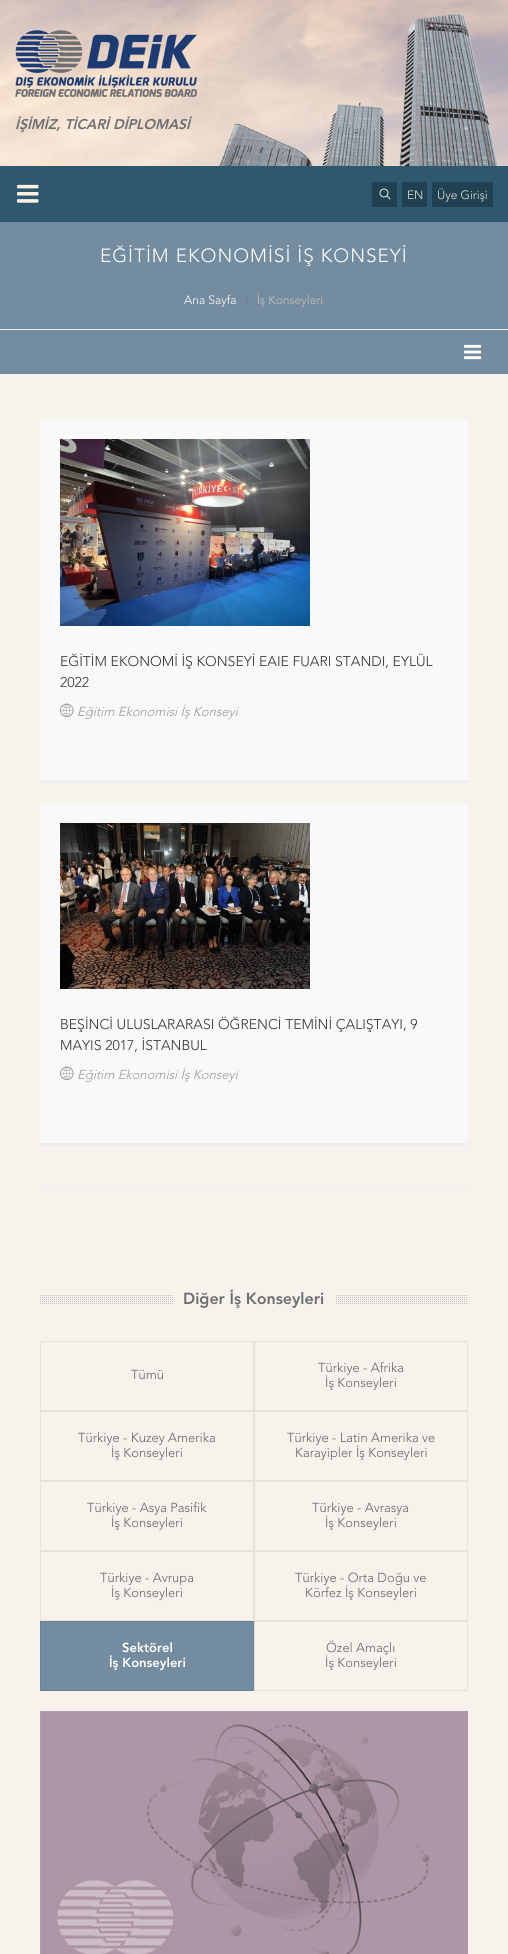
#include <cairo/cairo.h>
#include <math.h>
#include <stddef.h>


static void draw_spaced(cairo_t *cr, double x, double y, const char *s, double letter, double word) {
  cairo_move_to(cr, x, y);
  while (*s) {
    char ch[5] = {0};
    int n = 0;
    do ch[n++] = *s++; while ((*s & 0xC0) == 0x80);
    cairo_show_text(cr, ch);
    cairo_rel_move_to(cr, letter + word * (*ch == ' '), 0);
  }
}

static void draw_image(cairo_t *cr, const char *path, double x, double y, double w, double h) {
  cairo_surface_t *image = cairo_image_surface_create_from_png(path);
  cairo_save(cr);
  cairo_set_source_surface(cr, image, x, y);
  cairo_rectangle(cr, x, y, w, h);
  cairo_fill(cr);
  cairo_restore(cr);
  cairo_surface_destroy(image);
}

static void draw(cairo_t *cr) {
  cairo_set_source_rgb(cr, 247 / 255.0, 242 / 255.0, 235 / 255.0);
  cairo_paint(cr);
  draw_image(cr, "images/1.png", 0, 0, 508, 166);
  draw_image(cr, "images/2.png", 15, 30, 182, 67);
  cairo_set_source_rgb(cr, 46 / 255.0, 88 / 255.0, 110 / 255.0);
  cairo_rectangle(cr, 0, 166, 508, 56);
  cairo_fill(cr);
  draw_image(cr, "images/3.png", 17, 184, 22, 19);
  cairo_set_source_rgb(cr, 32 / 255.0, 65 / 255.0, 82 / 255.0);
  cairo_rectangle(cr, 372, 182, 25, 25);
  cairo_fill(cr);
  draw_image(cr, "images/4.png", 379, 188, 12, 12);
  cairo_rectangle(cr, 402, 182, 25, 25);
  cairo_fill(cr);
  cairo_rectangle(cr, 432, 182, 61, 25);
  cairo_fill(cr);
  cairo_set_source_rgb(cr, 116 / 255.0, 140 / 255.0, 159 / 255.0);
  cairo_rectangle(cr, 0, 222, 508, 107);
  cairo_fill(cr);
  cairo_set_source_rgb(cr, 238 / 255.0, 238 / 255.0, 238 / 255.0);
  cairo_rectangle(cr, 0, 329, 508, 1);
  cairo_fill(cr);
  cairo_set_source_rgb(cr, 116 / 255.0, 140 / 255.0, 159 / 255.0);
  cairo_rectangle(cr, 0, 330, 508, 44);
  cairo_fill(cr);
  draw_image(cr, "images/5.png", 464, 344, 18, 16);
  cairo_set_source_rgb(cr, 238 / 255.0, 238 / 255.0, 238 / 255.0);
  cairo_rectangle(cr, 40, 1186, 428, 1);
  cairo_fill(cr);
  cairo_set_source_rgb(cr, 249 / 255.0, 249 / 255.0, 249 / 255.0);
  cairo_rectangle(cr, 40, 419, 428, 361);
  cairo_fill(cr);
  cairo_set_source_rgb(cr, 238 / 255.0, 238 / 255.0, 238 / 255.0);
  cairo_rectangle(cr, 40, 780, 428, 3);
  cairo_fill(cr);
  draw_image(cr, "images/6.png", 60, 439, 250, 187);
  draw_image(cr, "images/7.png", 60, 703, 14, 15);
  cairo_set_source_rgb(cr, 249 / 255.0, 249 / 255.0, 249 / 255.0);
  cairo_rectangle(cr, 40, 803, 428, 340);
  cairo_fill(cr);
  cairo_set_source_rgb(cr, 238 / 255.0, 238 / 255.0, 238 / 255.0);
  cairo_rectangle(cr, 40, 1143, 428, 3);
  cairo_fill(cr);
  draw_image(cr, "images/8.png", 60, 823, 250, 166);
  draw_image(cr, "images/7.png", 60, 1066, 14, 15);
  draw_image(cr, "images/9.png", 40, 1295, 427, 9);
  cairo_set_source_rgb(cr, 247 / 255.0, 242 / 255.0, 235 / 255.0);
  cairo_rectangle(cr, 174, 1295, 161, 9);
  cairo_fill(cr);
  cairo_rectangle(cr, 40.5, 1341.5, 213, 69);
  cairo_set_source_rgb(cr, 230 / 255.0, 225 / 255.0, 219 / 255.0);
  cairo_set_line_width(cr, 1);
  cairo_stroke(cr);
  cairo_rectangle(cr, 254.5, 1341.5, 213, 69);
  cairo_stroke(cr);
  cairo_rectangle(cr, 40.5, 1411.5, 213, 69);
  cairo_stroke(cr);
  cairo_rectangle(cr, 254.5, 1411.5, 213, 69);
  cairo_stroke(cr);
  cairo_rectangle(cr, 40.5, 1481.5, 213, 69);
  cairo_stroke(cr);
  cairo_rectangle(cr, 254.5, 1481.5, 213, 69);
  cairo_stroke(cr);
  cairo_rectangle(cr, 40.5, 1551.5, 213, 69);
  cairo_stroke(cr);
  cairo_rectangle(cr, 254.5, 1551.5, 213, 69);
  cairo_stroke(cr);
  cairo_set_source_rgb(cr, 116 / 255.0, 140 / 255.0, 159 / 255.0);
  cairo_rectangle(cr, 40.5, 1621.5, 213, 69);
  cairo_fill_preserve(cr);
  cairo_set_source_rgb(cr, 108 / 255.0, 130 / 255.0, 148 / 255.0);
  cairo_stroke(cr);
  cairo_rectangle(cr, 254.5, 1621.5, 213, 69);
  cairo_set_source_rgb(cr, 230 / 255.0, 225 / 255.0, 219 / 255.0);
  cairo_stroke(cr);
  draw_image(cr, "images/10.png", 40, 1711, 428, 243);
  cairo_select_font_face(cr, "Avenir Black", CAIRO_FONT_SLANT_ITALIC, CAIRO_FONT_WEIGHT_NORMAL);
  cairo_set_font_size(cr, 14);
  cairo_set_source_rgb(cr, 109 / 255.0, 110 / 255.0, 113 / 255.0);
  cairo_move_to(cr, 15, 129);
  cairo_show_text(cr, "İŞİMİZ, TİCARİ DİPLOMASİ");
  cairo_select_font_face(cr, "Avenir Light", CAIRO_FONT_SLANT_NORMAL, CAIRO_FONT_WEIGHT_NORMAL);
  cairo_set_font_size(cr, 12);
  cairo_set_source_rgb(cr, 226 / 255.0, 228 / 255.0, 210 / 255.0);
  cairo_move_to(cr, 407, 199);
  cairo_show_text(cr, "EN");
  cairo_move_to(cr, 437, 199);
  cairo_show_text(cr, "Üye Girişi");
  cairo_set_font_size(cr, 19);
  cairo_set_source_rgb(cr, 1, 1, 1);
  draw_spaced(cr, 100, 262, "EĞİTİM EKONOMİSİ İŞ KONSEYİ", 1, 0);
  cairo_set_font_size(cr, 12);
  cairo_move_to(cr, 184, 304);
  cairo_show_text(cr, "Ana Sayfa");
  cairo_set_source_rgb(cr, 108 / 255.0, 117 / 255.0, 125 / 255.0);
  cairo_move_to(cr, 245, 304);
  cairo_show_text(cr, "/");
  cairo_set_source_rgb(cr, 194 / 255.0, 194 / 255.0, 194 / 255.0);
  cairo_move_to(cr, 257, 304);
  cairo_show_text(cr, "İş Konseyleri");
  cairo_set_font_size(cr, 14);
  cairo_set_source_rgb(cr, 51 / 255.0, 51 / 255.0, 51 / 255.0);
  cairo_move_to(cr, 60, 666);
  cairo_show_text(cr, "EĞİTİM EKONOMİ İŞ KONSEYİ EAIE FUARI STANDI, EYLÜL");
  cairo_move_to(cr, 60, 687);
  cairo_show_text(cr, "2022");
  cairo_select_font_face(cr, "Avenir Light", CAIRO_FONT_SLANT_ITALIC, CAIRO_FONT_WEIGHT_NORMAL);
  cairo_set_font_size(cr, 13);
  cairo_set_source_rgb(cr, 153 / 255.0, 153 / 255.0, 153 / 255.0);
  cairo_move_to(cr, 77, 716);
  cairo_show_text(cr, "Eğitim Ekonomisi İş Konseyi");
  cairo_select_font_face(cr, "Avenir Light", CAIRO_FONT_SLANT_NORMAL, CAIRO_FONT_WEIGHT_NORMAL);
  cairo_set_font_size(cr, 14);
  cairo_set_source_rgb(cr, 51 / 255.0, 51 / 255.0, 51 / 255.0);
  cairo_move_to(cr, 60, 1029);
  cairo_show_text(cr, "BEŞİNCİ ULUSLARARASI ÖĞRENCİ TEMİNİ ÇALIŞTAYI, 9");
  cairo_move_to(cr, 60, 1050);
  cairo_show_text(cr, "MAYIS 2017, İSTANBUL");
  cairo_select_font_face(cr, "Avenir Light", CAIRO_FONT_SLANT_ITALIC, CAIRO_FONT_WEIGHT_NORMAL);
  cairo_set_font_size(cr, 13);
  cairo_set_source_rgb(cr, 153 / 255.0, 153 / 255.0, 153 / 255.0);
  cairo_move_to(cr, 77, 1079);
  cairo_show_text(cr, "Eğitim Ekonomisi İş Konseyi");
  cairo_select_font_face(cr, "Avenir Black", CAIRO_FONT_SLANT_NORMAL, CAIRO_FONT_WEIGHT_NORMAL);
  cairo_set_font_size(cr, 16);
  cairo_set_source_rgb(cr, 109 / 255.0, 110 / 255.0, 113 / 255.0);
  cairo_move_to(cr, 183, 1304);
  cairo_show_text(cr, "Diğer İş Konseyleri");
  cairo_select_font_face(cr, "Avenir Light", CAIRO_FONT_SLANT_NORMAL, CAIRO_FONT_WEIGHT_NORMAL);
  cairo_set_font_size(cr, 13);
  cairo_set_source_rgb(cr, 102 / 255.0, 102 / 255.0, 102 / 255.0);
  cairo_move_to(cr, 131, 1379);
  cairo_show_text(cr, "Tümü");
  cairo_move_to(cr, 318, 1372);
  cairo_show_text(cr, "Türkiye - Afrika");
  cairo_move_to(cr, 325, 1387);
  cairo_show_text(cr, "İş Konseyleri");
  cairo_move_to(cr, 78, 1442);
  cairo_show_text(cr, "Türkiye - Kuzey Amerika");
  cairo_move_to(cr, 111, 1457);
  cairo_show_text(cr, "İş Konseyleri");
  cairo_move_to(cr, 287, 1442);
  cairo_show_text(cr, "Türkiye - Latin Amerika ve");
  cairo_move_to(cr, 295, 1457);
  cairo_show_text(cr, "Karayipler İş Konseyleri");
  cairo_move_to(cr, 87, 1512);
  cairo_show_text(cr, "Türkiye - Asya Pasifik");
  cairo_move_to(cr, 111, 1527);
  cairo_show_text(cr, "İş Konseyleri");
  cairo_move_to(cr, 312, 1512);
  cairo_show_text(cr, "Türkiye - Avrasya");
  cairo_move_to(cr, 325, 1527);
  cairo_show_text(cr, "İş Konseyleri");
  cairo_move_to(cr, 100, 1582);
  cairo_show_text(cr, "Türkiye - Avrupa");
  cairo_move_to(cr, 111, 1597);
  cairo_show_text(cr, "İş Konseyleri");
  cairo_move_to(cr, 295, 1582);
  cairo_show_text(cr, "Türkiye - Orta Doğu ve");
  cairo_move_to(cr, 305, 1597);
  cairo_show_text(cr, "Körfez İş Konseyleri");
  cairo_select_font_face(cr, "Avenir Black", CAIRO_FONT_SLANT_NORMAL, CAIRO_FONT_WEIGHT_NORMAL);
  cairo_set_source_rgb(cr, 1, 1, 1);
  cairo_move_to(cr, 122, 1652);
  cairo_show_text(cr, "Sektörel");
  cairo_move_to(cr, 109, 1667);
  cairo_show_text(cr, "İş Konseyleri");
  cairo_select_font_face(cr, "Avenir Light", CAIRO_FONT_SLANT_NORMAL, CAIRO_FONT_WEIGHT_NORMAL);
  cairo_set_source_rgb(cr, 102 / 255.0, 102 / 255.0, 102 / 255.0);
  cairo_move_to(cr, 326, 1652);
  cairo_show_text(cr, "Özel Amaçlı");
  cairo_move_to(cr, 325, 1667);
  cairo_show_text(cr, "İş Konseyleri");
}

int main(void) {
  cairo_surface_t *surface = cairo_image_surface_create(CAIRO_FORMAT_RGB24, 508, 1954);
  cairo_t *cr = cairo_create(surface);
  cairo_font_options_t *options = cairo_font_options_create();
  cairo_font_options_set_hint_metrics(options, CAIRO_HINT_METRICS_OFF);
  cairo_font_options_set_hint_style(options, CAIRO_HINT_STYLE_NONE);
  cairo_set_font_options(cr, options);
  cairo_set_miter_limit(cr, 4);
  draw(cr);
  cairo_surface_write_to_png(surface, "out.png");
  cairo_font_options_destroy(options);
  cairo_destroy(cr);
  cairo_surface_destroy(surface);
  return 0;
}
